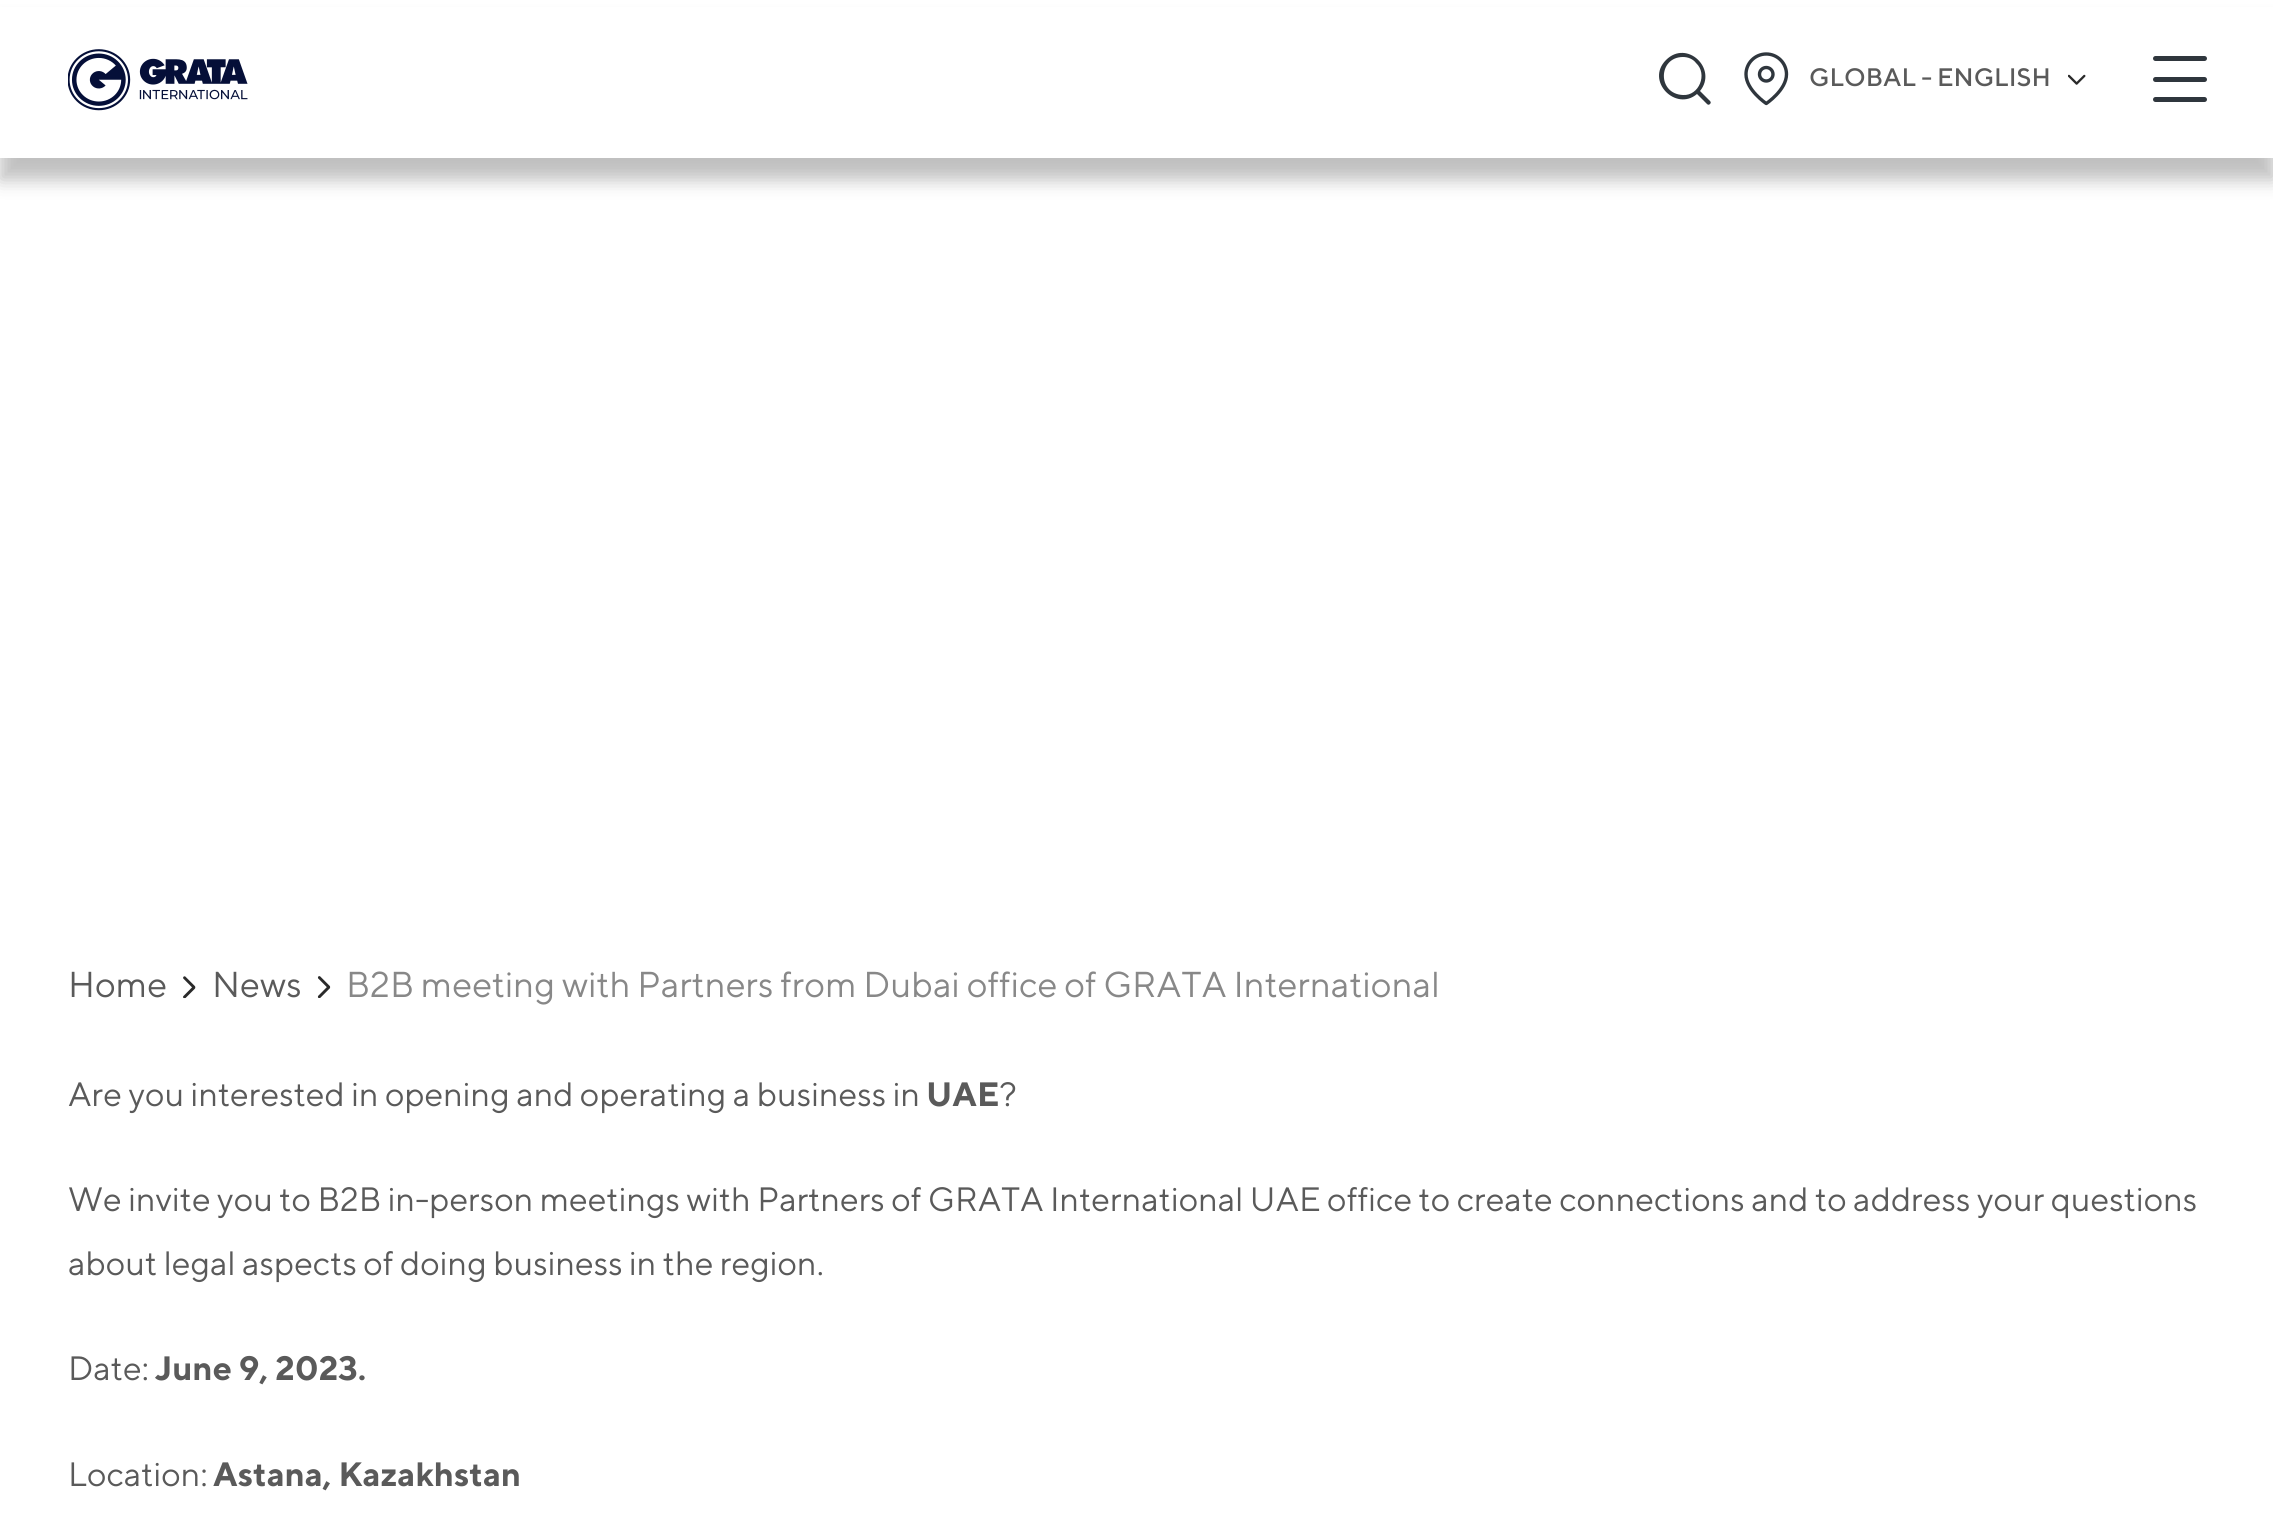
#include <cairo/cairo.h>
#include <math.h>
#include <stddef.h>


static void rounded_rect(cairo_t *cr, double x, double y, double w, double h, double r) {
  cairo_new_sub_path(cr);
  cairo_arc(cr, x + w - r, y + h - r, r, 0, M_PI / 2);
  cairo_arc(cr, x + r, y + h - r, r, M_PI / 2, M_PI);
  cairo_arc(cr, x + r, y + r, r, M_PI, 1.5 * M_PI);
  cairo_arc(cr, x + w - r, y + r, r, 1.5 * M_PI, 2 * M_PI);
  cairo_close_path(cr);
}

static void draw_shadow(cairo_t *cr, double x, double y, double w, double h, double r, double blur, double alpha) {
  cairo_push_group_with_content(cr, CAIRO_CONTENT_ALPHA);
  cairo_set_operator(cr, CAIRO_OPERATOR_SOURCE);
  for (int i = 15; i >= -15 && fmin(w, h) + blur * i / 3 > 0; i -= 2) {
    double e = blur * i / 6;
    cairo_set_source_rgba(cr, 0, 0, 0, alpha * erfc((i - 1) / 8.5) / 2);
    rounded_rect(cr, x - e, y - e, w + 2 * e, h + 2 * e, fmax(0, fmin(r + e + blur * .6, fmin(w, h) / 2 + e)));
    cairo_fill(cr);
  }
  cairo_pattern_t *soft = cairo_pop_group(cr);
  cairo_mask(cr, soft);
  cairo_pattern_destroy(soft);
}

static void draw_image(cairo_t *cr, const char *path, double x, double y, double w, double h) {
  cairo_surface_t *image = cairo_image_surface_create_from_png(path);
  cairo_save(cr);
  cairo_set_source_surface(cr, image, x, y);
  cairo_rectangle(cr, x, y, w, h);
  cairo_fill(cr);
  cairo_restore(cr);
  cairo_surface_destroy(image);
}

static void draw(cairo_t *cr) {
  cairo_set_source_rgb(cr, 1, 1, 1);
  cairo_paint(cr);
  cairo_set_source_rgb(cr, 0, 0, 0);
  draw_shadow(cr, 0, 23, 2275, 157, 0, 9, 0.25);
  cairo_set_source_rgb(cr, 1, 1, 1);
  cairo_rectangle(cr, 0, 7, 2273, 151);
  cairo_fill(cr);
  draw_image(cr, "images/1.png", 68, 49, 180, 62);
  cairo_set_source_rgb(cr, 47 / 255.0, 54 / 255.0, 61 / 255.0);
  cairo_set_fill_rule(cr, CAIRO_FILL_RULE_EVEN_ODD);
  cairo_new_path(cr);
  cairo_move_to(cr, 1683, 57);
  cairo_curve_to(cr, 1658, 57, 1657, 94, 1683, 95);
  cairo_curve_to(cr, 1699, 96, 1708, 74, 1696, 63);
  cairo_curve_to(cr, 1693, 59, 1688, 57, 1683, 57);
  cairo_close_path(cr);
  cairo_move_to(cr, 1700, 91);
  cairo_curve_to(cr, 1718, 69, 1687, 39, 1666, 60);
  cairo_curve_to(cr, 1645, 81, 1676, 112, 1697, 94);
  cairo_line_to(cr, 1707, 104);
  cairo_curve_to(cr, 1708, 105, 1709, 105, 1710, 104);
  cairo_curve_to(cr, 1711, 103, 1711, 102, 1710, 101);
  cairo_close_path(cr);
  cairo_fill(cr);
  draw_image(cr, "images/2.png", 1744, 52, 45, 54);
  draw_image(cr, "images/3.png", 2068, 74, 18, 11);
  rounded_rect(cr, 2153, 56, 54, 5, 2.5);
  cairo_fill(cr);
  rounded_rect(cr, 2153, 77, 54, 5, 2.5);
  cairo_fill(cr);
  rounded_rect(cr, 2153, 97, 54, 5, 2.5);
  cairo_fill(cr);
  draw_image(cr, "images/4.png", 183, 976, 13, 23);
  draw_image(cr, "images/5.png", 317, 976, 14, 22);
  cairo_select_font_face(cr, "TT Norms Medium", CAIRO_FONT_SLANT_NORMAL, CAIRO_FONT_WEIGHT_NORMAL);
  cairo_set_font_size(cr, 25.25);
  cairo_set_source_rgb(cr, 90 / 255.0, 90 / 255.0, 90 / 255.0);
  cairo_move_to(cr, 1809, 86);
  cairo_show_text(cr, "GLOBAL - ENGLISH");
  cairo_select_font_face(cr, "TT Norms", CAIRO_FONT_SLANT_NORMAL, CAIRO_FONT_WEIGHT_NORMAL);
  cairo_set_font_size(cr, 36);
  cairo_move_to(cr, 68, 997);
  cairo_show_text(cr, "Home");
  cairo_move_to(cr, 212, 997);
  cairo_show_text(cr, "News");
  cairo_set_source_rgb(cr, 136 / 255.0, 136 / 255.0, 136 / 255.0);
  cairo_move_to(cr, 346, 997);
  cairo_show_text(cr, "B2B meeting with Partners from Dubai office of GRATA International");
  cairo_set_font_size(cr, 33.75);
  cairo_set_source_rgb(cr, 90 / 255.0, 90 / 255.0, 90 / 255.0);
  cairo_move_to(cr, 68, 1106);
  cairo_show_text(cr, "Are you interested in opening and operating a business in");
  cairo_select_font_face(cr, "TT Norms", CAIRO_FONT_SLANT_NORMAL, CAIRO_FONT_WEIGHT_BOLD);
  cairo_move_to(cr, 926, 1106);
  cairo_show_text(cr, "UAE");
  cairo_select_font_face(cr, "TT Norms", CAIRO_FONT_SLANT_NORMAL, CAIRO_FONT_WEIGHT_NORMAL);
  cairo_move_to(cr, 999, 1106);
  cairo_show_text(cr, "?");
  cairo_move_to(cr, 68, 1211);
  cairo_show_text(cr, "We invite you to B2B in-person meetings with Partners of GRATA International UAE office to create connections and to address your questions");
  cairo_move_to(cr, 68, 1275);
  cairo_show_text(cr, "about legal aspects of doing business in the region.");
  cairo_move_to(cr, 68, 1380);
  cairo_show_text(cr, "Date:");
  cairo_select_font_face(cr, "TT Norms", CAIRO_FONT_SLANT_NORMAL, CAIRO_FONT_WEIGHT_BOLD);
  cairo_move_to(cr, 155, 1380);
  cairo_show_text(cr, "June 9, 2023.");
  cairo_select_font_face(cr, "TT Norms", CAIRO_FONT_SLANT_NORMAL, CAIRO_FONT_WEIGHT_NORMAL);
  cairo_move_to(cr, 68, 1486);
  cairo_show_text(cr, "Location:");
  cairo_select_font_face(cr, "TT Norms", CAIRO_FONT_SLANT_NORMAL, CAIRO_FONT_WEIGHT_BOLD);
  cairo_move_to(cr, 213, 1486);
  cairo_show_text(cr, "Astana, Kazakhstan");
}

int main(void) {
  cairo_surface_t *surface = cairo_image_surface_create(CAIRO_FORMAT_RGB24, 2273, 1518);
  cairo_t *cr = cairo_create(surface);
  cairo_font_options_t *options = cairo_font_options_create();
  cairo_font_options_set_hint_metrics(options, CAIRO_HINT_METRICS_OFF);
  cairo_font_options_set_hint_style(options, CAIRO_HINT_STYLE_NONE);
  cairo_set_font_options(cr, options);
  cairo_set_miter_limit(cr, 4);
  draw(cr);
  cairo_surface_write_to_png(surface, "out.png");
  cairo_font_options_destroy(options);
  cairo_destroy(cr);
  cairo_surface_destroy(surface);
  return 0;
}
